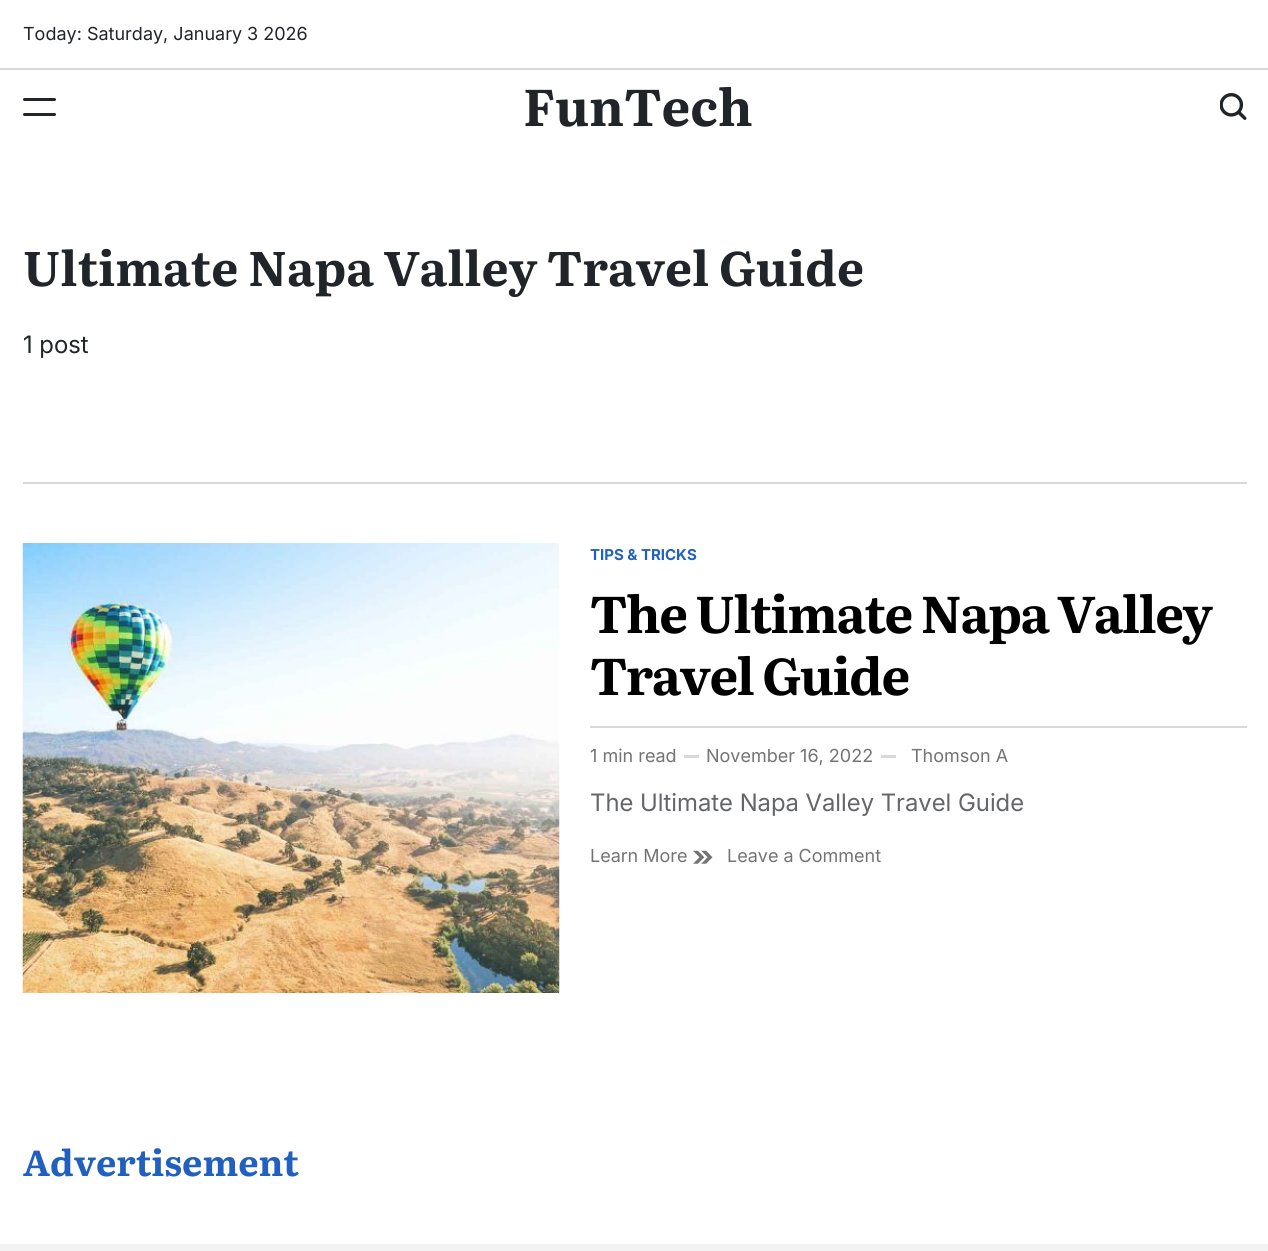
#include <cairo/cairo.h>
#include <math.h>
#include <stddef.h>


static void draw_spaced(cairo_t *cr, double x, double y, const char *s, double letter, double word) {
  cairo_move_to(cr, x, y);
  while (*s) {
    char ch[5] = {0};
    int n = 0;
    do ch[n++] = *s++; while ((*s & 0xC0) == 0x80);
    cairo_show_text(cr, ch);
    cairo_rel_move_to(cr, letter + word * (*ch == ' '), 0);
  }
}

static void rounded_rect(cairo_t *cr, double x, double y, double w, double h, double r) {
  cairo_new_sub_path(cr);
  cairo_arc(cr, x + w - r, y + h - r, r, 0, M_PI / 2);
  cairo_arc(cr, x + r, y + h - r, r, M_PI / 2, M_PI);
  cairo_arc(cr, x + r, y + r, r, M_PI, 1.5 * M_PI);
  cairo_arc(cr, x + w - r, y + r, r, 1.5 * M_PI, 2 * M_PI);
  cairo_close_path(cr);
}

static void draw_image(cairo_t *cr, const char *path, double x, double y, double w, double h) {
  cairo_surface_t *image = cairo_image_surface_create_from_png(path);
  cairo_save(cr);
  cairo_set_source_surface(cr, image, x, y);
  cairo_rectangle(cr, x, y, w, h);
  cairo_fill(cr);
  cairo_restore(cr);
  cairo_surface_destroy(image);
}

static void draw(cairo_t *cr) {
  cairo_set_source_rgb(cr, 1, 1, 1);
  cairo_paint(cr);
  cairo_set_source_rgb(cr, 217 / 255.0, 217 / 255.0, 217 / 255.0);
  cairo_rectangle(cr, 0, 68, 1268, 2);
  cairo_fill(cr);
  cairo_set_source_rgb(cr, 33 / 255.0, 37 / 255.0, 41 / 255.0);
  rounded_rect(cr, 23, 98, 33, 3, 1.5);
  cairo_fill(cr);
  rounded_rect(cr, 23, 113, 33, 3, 1.5);
  cairo_fill(cr);
  draw_image(cr, "images/1.png", 1220, 93, 27, 27);
  cairo_set_source_rgb(cr, 217 / 255.0, 217 / 255.0, 217 / 255.0);
  cairo_rectangle(cr, 23, 482, 1224, 2);
  cairo_fill(cr);
  draw_image(cr, "images/2.png", 22, 543, 538, 450);
  cairo_rectangle(cr, 590, 726, 657, 2);
  cairo_fill(cr);
  cairo_rectangle(cr, 684, 755, 15, 3);
  cairo_fill(cr);
  cairo_rectangle(cr, 881, 755, 15, 3);
  cairo_fill(cr);
  draw_image(cr, "images/3.png", 693, 850, 20, 14);
  cairo_set_source_rgb(cr, 243 / 255.0, 243 / 255.0, 243 / 255.0);
  cairo_rectangle(cr, 0, 1244, 1268, 7);
  cairo_fill(cr);
  cairo_select_font_face(cr, "Inter", CAIRO_FONT_SLANT_NORMAL, CAIRO_FONT_WEIGHT_NORMAL);
  cairo_set_font_size(cr, 18);
  cairo_set_source_rgb(cr, 33 / 255.0, 37 / 255.0, 41 / 255.0);
  cairo_move_to(cr, 23, 40);
  cairo_show_text(cr, "Today: Saturday, January 3 2026");
  cairo_select_font_face(cr, "Literata", CAIRO_FONT_SLANT_NORMAL, CAIRO_FONT_WEIGHT_BOLD);
  cairo_set_font_size(cr, 51);
  cairo_move_to(cr, 523, 126);
  cairo_show_text(cr, "FunTech");
  cairo_select_font_face(cr, "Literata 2", CAIRO_FONT_SLANT_NORMAL, CAIRO_FONT_WEIGHT_BOLD);
  cairo_set_font_size(cr, 48);
  cairo_move_to(cr, 23, 286);
  cairo_show_text(cr, "Ultimate Napa Valley Travel Guide");
  cairo_select_font_face(cr, "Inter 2", CAIRO_FONT_SLANT_NORMAL, CAIRO_FONT_WEIGHT_NORMAL);
  cairo_set_font_size(cr, 24);
  cairo_move_to(cr, 23, 353);
  cairo_show_text(cr, "1 post");
  cairo_select_font_face(cr, "Inter", CAIRO_FONT_SLANT_NORMAL, CAIRO_FONT_WEIGHT_BOLD);
  cairo_set_font_size(cr, 15);
  cairo_set_source_rgb(cr, 34 / 255.0, 96 / 255.0, 191 / 255.0);
  cairo_move_to(cr, 590, 560);
  cairo_show_text(cr, "TIPS & TRICKS");
  cairo_select_font_face(cr, "Literata", CAIRO_FONT_SLANT_NORMAL, CAIRO_FONT_WEIGHT_BOLD);
  cairo_set_font_size(cr, 51);
  cairo_set_source_rgb(cr, 0, 0, 0);
  draw_spaced(cr, 590, 633, "The Ultimate Napa Valley", -1.5, 0);
  draw_spaced(cr, 590, 695, "Travel Guide", -1.5, 0);
  cairo_select_font_face(cr, "Inter", CAIRO_FONT_SLANT_NORMAL, CAIRO_FONT_WEIGHT_NORMAL);
  cairo_set_font_size(cr, 18);
  cairo_set_source_rgb(cr, 115 / 255.0, 115 / 255.0, 115 / 255.0);
  cairo_move_to(cr, 590, 762);
  cairo_show_text(cr, "1 min read");
  cairo_move_to(cr, 706, 762);
  cairo_show_text(cr, "November 16, 2022");
  cairo_move_to(cr, 911, 762);
  cairo_show_text(cr, "Thomson A");
  cairo_select_font_face(cr, "Inter 2", CAIRO_FONT_SLANT_NORMAL, CAIRO_FONT_WEIGHT_NORMAL);
  cairo_set_font_size(cr, 24);
  cairo_set_source_rgb(cr, 100 / 255.0, 102 / 255.0, 105 / 255.0);
  cairo_move_to(cr, 590, 811);
  cairo_show_text(cr, "The Ultimate Napa Valley Travel Guide");
  cairo_select_font_face(cr, "Inter", CAIRO_FONT_SLANT_NORMAL, CAIRO_FONT_WEIGHT_NORMAL);
  cairo_set_font_size(cr, 18);
  cairo_set_source_rgb(cr, 115 / 255.0, 115 / 255.0, 115 / 255.0);
  cairo_move_to(cr, 590, 862);
  cairo_show_text(cr, "Learn More");
  cairo_move_to(cr, 727, 862);
  cairo_show_text(cr, "Leave a Comment");
  cairo_select_font_face(cr, "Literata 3", CAIRO_FONT_SLANT_NORMAL, CAIRO_FONT_WEIGHT_BOLD);
  cairo_set_font_size(cr, 36);
  cairo_set_source_rgb(cr, 34 / 255.0, 96 / 255.0, 191 / 255.0);
  cairo_move_to(cr, 23, 1176);
  cairo_show_text(cr, "Advertisement");
}

int main(void) {
  cairo_surface_t *surface = cairo_image_surface_create(CAIRO_FORMAT_RGB24, 1268, 1251);
  cairo_t *cr = cairo_create(surface);
  cairo_font_options_t *options = cairo_font_options_create();
  cairo_font_options_set_hint_metrics(options, CAIRO_HINT_METRICS_OFF);
  cairo_font_options_set_hint_style(options, CAIRO_HINT_STYLE_NONE);
  cairo_set_font_options(cr, options);
  cairo_set_miter_limit(cr, 4);
  draw(cr);
  cairo_surface_write_to_png(surface, "out.png");
  cairo_font_options_destroy(options);
  cairo_destroy(cr);
  cairo_surface_destroy(surface);
  return 0;
}
